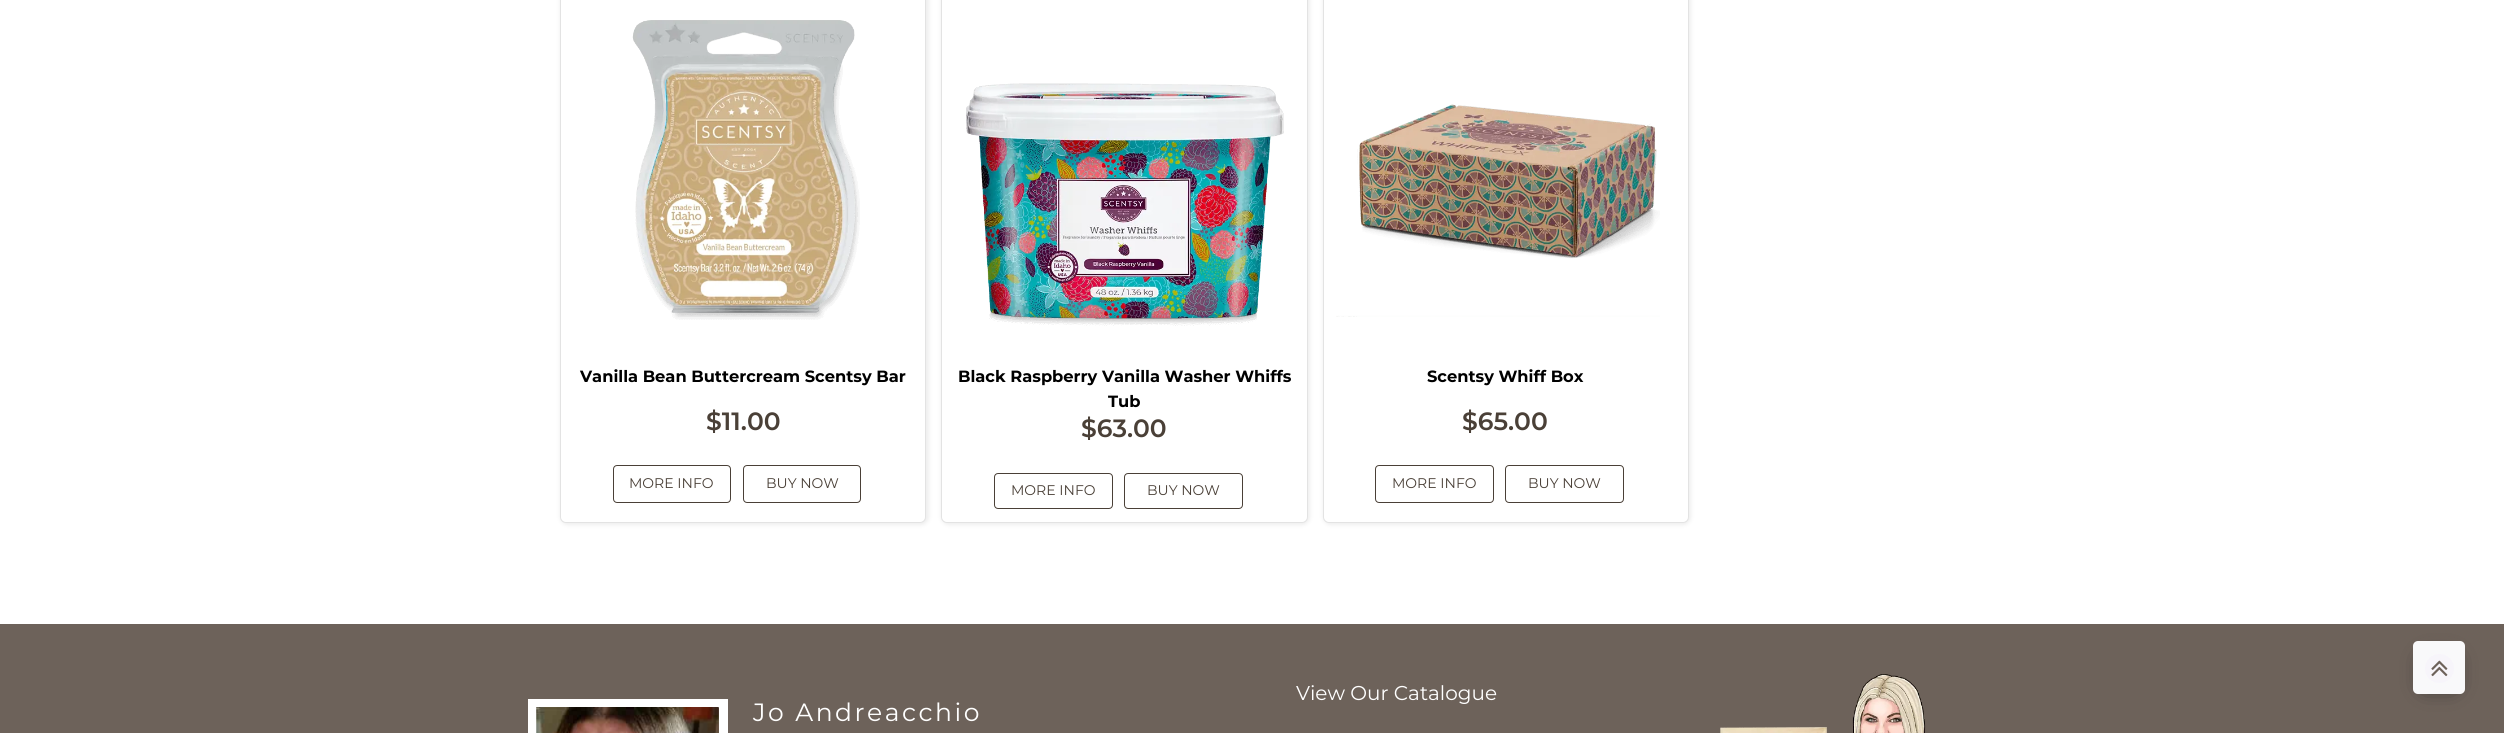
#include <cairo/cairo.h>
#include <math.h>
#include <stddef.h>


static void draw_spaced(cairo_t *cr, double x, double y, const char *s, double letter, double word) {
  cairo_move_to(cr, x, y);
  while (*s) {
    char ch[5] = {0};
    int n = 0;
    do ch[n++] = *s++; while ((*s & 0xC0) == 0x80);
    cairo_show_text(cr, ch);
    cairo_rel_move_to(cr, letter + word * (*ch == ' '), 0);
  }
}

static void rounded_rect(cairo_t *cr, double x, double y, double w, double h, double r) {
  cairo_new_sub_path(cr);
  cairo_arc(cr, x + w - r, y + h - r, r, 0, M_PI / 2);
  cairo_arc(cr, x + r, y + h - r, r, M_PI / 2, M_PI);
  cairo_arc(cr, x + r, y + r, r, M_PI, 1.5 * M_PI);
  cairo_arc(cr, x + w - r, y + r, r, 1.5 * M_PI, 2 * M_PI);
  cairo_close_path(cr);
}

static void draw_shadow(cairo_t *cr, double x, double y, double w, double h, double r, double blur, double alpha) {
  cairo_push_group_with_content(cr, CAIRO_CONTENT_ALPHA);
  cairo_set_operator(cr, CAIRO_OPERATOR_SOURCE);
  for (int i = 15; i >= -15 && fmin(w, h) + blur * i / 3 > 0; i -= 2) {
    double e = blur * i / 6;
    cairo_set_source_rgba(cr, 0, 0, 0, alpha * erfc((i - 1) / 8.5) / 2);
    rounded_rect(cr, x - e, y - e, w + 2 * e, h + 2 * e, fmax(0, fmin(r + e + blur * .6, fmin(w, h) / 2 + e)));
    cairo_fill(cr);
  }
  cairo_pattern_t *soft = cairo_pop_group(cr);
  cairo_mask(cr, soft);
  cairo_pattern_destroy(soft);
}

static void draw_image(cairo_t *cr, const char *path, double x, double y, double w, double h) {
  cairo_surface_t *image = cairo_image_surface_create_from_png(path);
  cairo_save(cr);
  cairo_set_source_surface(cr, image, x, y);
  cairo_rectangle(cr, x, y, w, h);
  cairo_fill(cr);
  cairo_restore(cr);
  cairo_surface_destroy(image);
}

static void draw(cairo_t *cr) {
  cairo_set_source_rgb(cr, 1, 1, 1);
  cairo_paint(cr);
  cairo_set_source_rgb(cr, 238 / 255.0, 238 / 255.0, 238 / 255.0);
  draw_shadow(cr, 560, -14, 369, 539, 8, 2, 1);
  cairo_set_source_rgb(cr, 1, 1, 1);
  rounded_rect(cr, 560.5, -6.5, 365, 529, 5.5);
  cairo_fill_preserve(cr);
  cairo_set_source_rgb(cr, 227 / 255.0, 227 / 255.0, 227 / 255.0);
  cairo_set_line_width(cr, 1);
  cairo_stroke(cr);
  draw_image(cr, "images/1.png", 632, 20, 228, 300);
  rounded_rect(cr, 613.5, 465.5, 117, 37, 3.5);
  cairo_set_source_rgb(cr, 74 / 255.0, 64 / 255.0, 55 / 255.0);
  cairo_stroke(cr);
  rounded_rect(cr, 743.5, 465.5, 117, 37, 3.5);
  cairo_stroke(cr);
  cairo_set_source_rgb(cr, 238 / 255.0, 238 / 255.0, 238 / 255.0);
  draw_shadow(cr, 941, -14, 369, 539, 8, 2, 1);
  cairo_set_source_rgb(cr, 1, 1, 1);
  rounded_rect(cr, 941.5, -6.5, 366, 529, 5.5);
  cairo_fill_preserve(cr);
  cairo_set_source_rgb(cr, 227 / 255.0, 227 / 255.0, 227 / 255.0);
  cairo_stroke(cr);
  draw_image(cr, "images/2.png", 966, 83, 318, 243);
  rounded_rect(cr, 994.5, 473.5, 118, 35, 3.5);
  cairo_set_source_rgb(cr, 74 / 255.0, 64 / 255.0, 55 / 255.0);
  cairo_stroke(cr);
  rounded_rect(cr, 1124.5, 473.5, 118, 35, 3.5);
  cairo_stroke(cr);
  cairo_set_source_rgb(cr, 238 / 255.0, 238 / 255.0, 238 / 255.0);
  draw_shadow(cr, 1323, -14, 368, 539, 8, 2, 1);
  cairo_set_source_rgb(cr, 1, 1, 1);
  rounded_rect(cr, 1323.5, -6.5, 365, 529, 5.5);
  cairo_fill_preserve(cr);
  cairo_set_source_rgb(cr, 227 / 255.0, 227 / 255.0, 227 / 255.0);
  cairo_stroke(cr);
  draw_image(cr, "images/3.png", 1336, 104, 324, 213);
  rounded_rect(cr, 1375.5, 465.5, 118, 37, 3.5);
  cairo_set_source_rgb(cr, 74 / 255.0, 64 / 255.0, 55 / 255.0);
  cairo_stroke(cr);
  rounded_rect(cr, 1505.5, 465.5, 118, 37, 3.5);
  cairo_stroke(cr);
  cairo_set_source_rgb(cr, 109 / 255.0, 98 / 255.0, 90 / 255.0);
  cairo_rectangle(cr, 0, 624, 2504, 109);
  cairo_fill(cr);
  draw_image(cr, "images/4.png", 1720, 674, 206, 59);
  cairo_rectangle(cr, 532.5, 703.5, 191, 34);
  cairo_set_source_rgb(cr, 1, 1, 1);
  cairo_set_line_width(cr, 9);
  cairo_stroke(cr);
  draw_image(cr, "images/5.png", 536, 707, 183, 26);
  cairo_set_source_rgb(cr, 30 / 255.0, 30 / 255.0, 30 / 255.0);
  draw_shadow(cr, 2425, 659, 28, 27, 0, 10.5, 1);
  cairo_set_source_rgb(cr, 249 / 255.0, 249 / 255.0, 250 / 255.0);
  rounded_rect(cr, 2413, 641, 52, 53, 5);
  cairo_fill(cr);
  cairo_set_source_rgb(cr, 247 / 255.0, 245 / 255.0, 250 / 255.0);
  cairo_arc(cr, 2439.5, 668.5, 14.5, 0, 2 * M_PI);
  cairo_fill(cr);
  draw_image(cr, "images/6.png", 2431, 660, 17, 17);
  cairo_select_font_face(cr, "Montserrat", CAIRO_FONT_SLANT_NORMAL, CAIRO_FONT_WEIGHT_BOLD);
  cairo_set_font_size(cr, 16.25);
  cairo_set_source_rgb(cr, 0, 0, 0);
  cairo_move_to(cr, 580, 382);
  cairo_show_text(cr, "Vanilla Bean Buttercream Scentsy Bar");
  cairo_select_font_face(cr, "Montserrat SemiBold", CAIRO_FONT_SLANT_NORMAL, CAIRO_FONT_WEIGHT_NORMAL);
  cairo_set_font_size(cr, 25);
  cairo_set_source_rgb(cr, 74 / 255.0, 64 / 255.0, 55 / 255.0);
  cairo_move_to(cr, 706, 430);
  cairo_show_text(cr, "$11.00");
  cairo_select_font_face(cr, "Montserrat", CAIRO_FONT_SLANT_NORMAL, CAIRO_FONT_WEIGHT_NORMAL);
  cairo_set_font_size(cr, 14);
  cairo_move_to(cr, 629, 488);
  cairo_show_text(cr, "MORE INFO");
  cairo_move_to(cr, 766, 488);
  cairo_show_text(cr, "BUY NOW");
  cairo_select_font_face(cr, "Montserrat", CAIRO_FONT_SLANT_NORMAL, CAIRO_FONT_WEIGHT_BOLD);
  cairo_set_font_size(cr, 16.25);
  cairo_set_source_rgb(cr, 0, 0, 0);
  cairo_move_to(cr, 958, 382);
  cairo_show_text(cr, "Black Raspberry Vanilla Washer Whiffs");
  cairo_move_to(cr, 1108, 407);
  cairo_show_text(cr, "Tub");
  cairo_select_font_face(cr, "Montserrat SemiBold", CAIRO_FONT_SLANT_NORMAL, CAIRO_FONT_WEIGHT_NORMAL);
  cairo_set_font_size(cr, 25);
  cairo_set_source_rgb(cr, 74 / 255.0, 64 / 255.0, 55 / 255.0);
  cairo_move_to(cr, 1081, 437);
  cairo_show_text(cr, "$63.00");
  cairo_select_font_face(cr, "Montserrat", CAIRO_FONT_SLANT_NORMAL, CAIRO_FONT_WEIGHT_NORMAL);
  cairo_set_font_size(cr, 14);
  cairo_move_to(cr, 1011, 495);
  cairo_show_text(cr, "MORE INFO");
  cairo_move_to(cr, 1147, 495);
  cairo_show_text(cr, "BUY NOW");
  cairo_select_font_face(cr, "Montserrat", CAIRO_FONT_SLANT_NORMAL, CAIRO_FONT_WEIGHT_BOLD);
  cairo_set_font_size(cr, 16.25);
  cairo_set_source_rgb(cr, 0, 0, 0);
  cairo_move_to(cr, 1427, 382);
  cairo_show_text(cr, "Scentsy Whiff Box");
  cairo_select_font_face(cr, "Montserrat SemiBold", CAIRO_FONT_SLANT_NORMAL, CAIRO_FONT_WEIGHT_NORMAL);
  cairo_set_font_size(cr, 25);
  cairo_set_source_rgb(cr, 74 / 255.0, 64 / 255.0, 55 / 255.0);
  cairo_move_to(cr, 1462, 430);
  cairo_show_text(cr, "$65.00");
  cairo_select_font_face(cr, "Montserrat", CAIRO_FONT_SLANT_NORMAL, CAIRO_FONT_WEIGHT_NORMAL);
  cairo_set_font_size(cr, 14);
  cairo_move_to(cr, 1392, 488);
  cairo_show_text(cr, "MORE INFO");
  cairo_move_to(cr, 1528, 488);
  cairo_show_text(cr, "BUY NOW");
  cairo_set_font_size(cr, 20);
  cairo_set_source_rgb(cr, 1, 1, 1);
  cairo_move_to(cr, 1296, 700);
  cairo_show_text(cr, "View Our Catalogue");
  cairo_set_font_size(cr, 25);
  draw_spaced(cr, 753, 721, "Jo Andreacchio", 2.5, 0);
}

int main(void) {
  cairo_surface_t *surface = cairo_image_surface_create(CAIRO_FORMAT_RGB24, 2504, 733);
  cairo_t *cr = cairo_create(surface);
  cairo_font_options_t *options = cairo_font_options_create();
  cairo_font_options_set_hint_metrics(options, CAIRO_HINT_METRICS_OFF);
  cairo_font_options_set_hint_style(options, CAIRO_HINT_STYLE_NONE);
  cairo_set_font_options(cr, options);
  cairo_set_miter_limit(cr, 4);
  draw(cr);
  cairo_surface_write_to_png(surface, "out.png");
  cairo_font_options_destroy(options);
  cairo_destroy(cr);
  cairo_surface_destroy(surface);
  return 0;
}
